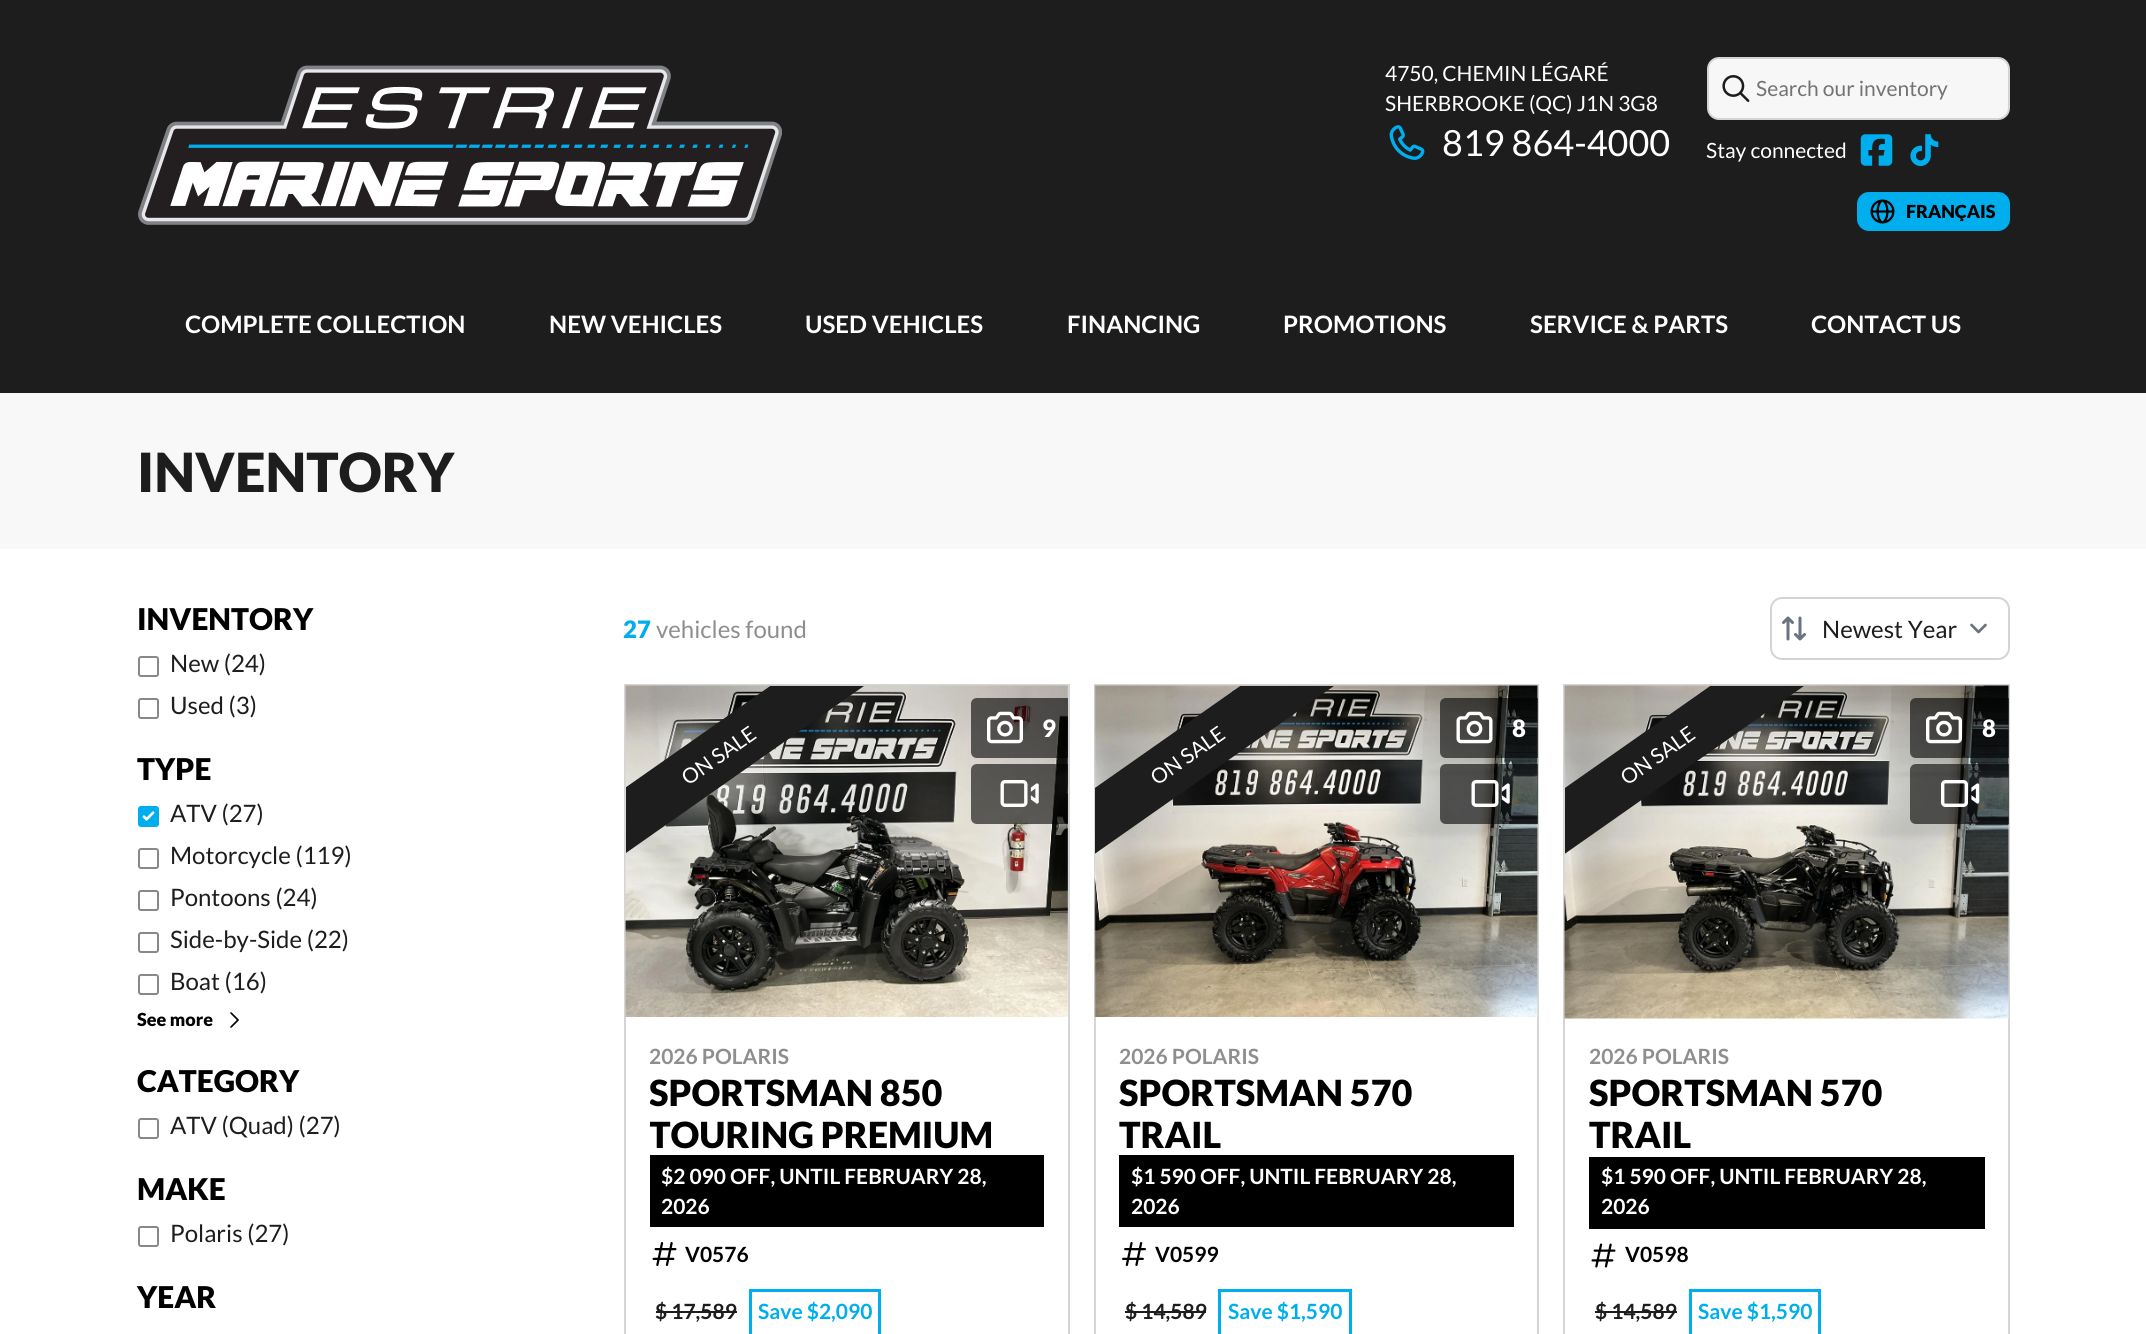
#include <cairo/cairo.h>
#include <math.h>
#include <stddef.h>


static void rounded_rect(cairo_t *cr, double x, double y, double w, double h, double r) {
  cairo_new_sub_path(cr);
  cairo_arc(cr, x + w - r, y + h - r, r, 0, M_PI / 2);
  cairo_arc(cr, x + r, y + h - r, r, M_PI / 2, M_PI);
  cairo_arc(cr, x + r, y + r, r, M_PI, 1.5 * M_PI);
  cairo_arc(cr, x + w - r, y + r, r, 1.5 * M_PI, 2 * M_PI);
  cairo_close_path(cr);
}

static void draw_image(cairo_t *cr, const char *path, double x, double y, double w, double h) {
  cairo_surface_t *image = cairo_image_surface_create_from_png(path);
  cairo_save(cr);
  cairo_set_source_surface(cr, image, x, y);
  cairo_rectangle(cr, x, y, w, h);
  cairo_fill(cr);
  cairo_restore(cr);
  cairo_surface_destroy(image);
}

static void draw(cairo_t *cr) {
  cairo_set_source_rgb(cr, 1, 1, 1);
  cairo_paint(cr);
  cairo_set_source_rgb(cr, 29 / 255.0, 29 / 255.0, 29 / 255.0);
  cairo_rectangle(cr, 0, 0, 2146, 393);
  cairo_fill(cr);
  draw_image(cr, "images/1.png", 138, 65, 644, 160);
  draw_image(cr, "images/2.png", 1389, 125, 36, 35);
  cairo_set_source_rgb(cr, 247 / 255.0, 247 / 255.0, 247 / 255.0);
  rounded_rect(cr, 1708, 58, 301, 61, 11);
  cairo_fill_preserve(cr);
  cairo_set_source_rgb(cr, 212 / 255.0, 212 / 255.0, 212 / 255.0);
  cairo_stroke(cr);
  draw_image(cr, "images/3.png", 1722, 75, 28, 27);
  draw_image(cr, "images/4.png", 1860, 134, 33, 32);
  draw_image(cr, "images/5.png", 1910, 134, 29, 33);
  cairo_set_source_rgb(cr, 0, 174 / 255.0, 238 / 255.0);
  rounded_rect(cr, 1858, 193, 151, 37, 11);
  cairo_fill_preserve(cr);
  cairo_stroke(cr);
  draw_image(cr, "images/6.png", 1870, 199, 25, 25);
  cairo_set_source_rgb(cr, 248 / 255.0, 248 / 255.0, 248 / 255.0);
  cairo_rectangle(cr, 0, 393, 2146, 156);
  cairo_fill(cr);
  rounded_rect(cr, 139, 657, 19, 19, 2);
  cairo_set_source_rgb(cr, 136 / 255.0, 136 / 255.0, 136 / 255.0);
  cairo_stroke(cr);
  rounded_rect(cr, 139, 699, 19, 19, 2);
  cairo_stroke(cr);
  cairo_set_source_rgb(cr, 0, 174 / 255.0, 238 / 255.0);
  rounded_rect(cr, 138, 806, 21, 21, 3);
  cairo_fill(cr);
  draw_image(cr, "images/7.png", 142, 811, 13, 10);
  rounded_rect(cr, 139, 849, 19, 19, 2);
  cairo_set_source_rgb(cr, 136 / 255.0, 136 / 255.0, 136 / 255.0);
  cairo_stroke(cr);
  rounded_rect(cr, 139, 891, 19, 19, 2);
  cairo_stroke(cr);
  rounded_rect(cr, 139, 933, 19, 19, 2);
  cairo_stroke(cr);
  rounded_rect(cr, 139, 975, 19, 19, 2);
  cairo_stroke(cr);
  draw_image(cr, "images/8.png", 230, 1012, 9, 16);
  rounded_rect(cr, 139, 1119, 19, 19, 2);
  cairo_stroke(cr);
  rounded_rect(cr, 139, 1227, 19, 19, 2);
  cairo_stroke(cr);
  cairo_new_path(cr);
  cairo_move_to(cr, 1971.5, 625);
  cairo_line_to(cr, 1978.5, 632);
  cairo_line_to(cr, 1985.5, 625);
  cairo_set_source_rgb(cr, 107 / 255.0, 114 / 255.0, 128 / 255.0);
  cairo_set_line_width(cr, 2.7);
  cairo_set_line_cap(cr, CAIRO_LINE_CAP_ROUND);
  cairo_set_line_join(cr, CAIRO_LINE_JOIN_ROUND);
  cairo_stroke(cr);
  rounded_rect(cr, 1771, 598, 238, 61, 11);
  cairo_set_source_rgb(cr, 212 / 255.0, 212 / 255.0, 212 / 255.0);
  cairo_set_line_width(cr, 2);
  cairo_set_line_cap(cr, CAIRO_LINE_CAP_BUTT);
  cairo_set_line_join(cr, CAIRO_LINE_JOIN_MITER);
  cairo_stroke(cr);
  draw_image(cr, "images/9.png", 1782, 616, 24, 25);
  cairo_rectangle(cr, 625, 685, 444, 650);
  cairo_set_source_rgb(cr, 213 / 255.0, 213 / 255.0, 213 / 255.0);
  cairo_stroke(cr);
  draw_image(cr, "images/10.png", 625, 685, 443, 332);
  cairo_save(cr);
  cairo_rectangle(cr, 626, 686, 240, 240);
  cairo_clip(cr);
  cairo_set_source_rgb(cr, 29 / 255.0, 29 / 255.0, 29 / 255.0);
  cairo_new_path(cr);
  cairo_move_to(cr, 565, 830);
  cairo_line_to(cr, 860, 623);
  cairo_line_to(cr, 891, 667);
  cairo_line_to(cr, 596, 874);
  cairo_close_path(cr);
  cairo_fill(cr);
  cairo_restore(cr);
  cairo_set_source_rgba(cr, 0, 0, 0, 0.6);
  cairo_new_path(cr);
  cairo_move_to(cr, 977, 698);
  cairo_line_to(cr, 1068, 698);
  cairo_line_to(cr, 1068, 758);
  cairo_line_to(cr, 977, 758);
  cairo_curve_to(cr, 973.5, 758, 971, 755.5, 971, 752);
  cairo_line_to(cr, 971, 704);
  cairo_curve_to(cr, 971, 700.5, 973.5, 698, 977, 698);
  cairo_close_path(cr);
  cairo_fill(cr);
  draw_image(cr, "images/11.png", 987, 711, 36, 33);
  cairo_new_path(cr);
  cairo_move_to(cr, 977, 764);
  cairo_line_to(cr, 1068, 764);
  cairo_line_to(cr, 1068, 824);
  cairo_line_to(cr, 977, 824);
  cairo_curve_to(cr, 973.5, 824, 971, 821.5, 971, 818);
  cairo_line_to(cr, 971, 770);
  cairo_curve_to(cr, 971, 766.5, 973.5, 764, 977, 764);
  cairo_close_path(cr);
  cairo_fill(cr);
  draw_image(cr, "images/12.png", 1000, 780, 39, 27);
  cairo_set_source_rgb(cr, 0, 0, 0);
  cairo_rectangle(cr, 650, 1155, 394, 72);
  cairo_fill(cr);
  draw_image(cr, "images/13.png", 652, 1242, 25, 24);
  cairo_set_source_rgb(cr, 29 / 255.0, 29 / 255.0, 29 / 255.0);
  cairo_rectangle(cr, 656, 1311, 81, 2);
  cairo_fill(cr);
  cairo_rectangle(cr, 750.5, 1290.5, 129, 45);
  cairo_set_source_rgb(cr, 0, 174 / 255.0, 238 / 255.0);
  cairo_set_line_width(cr, 3);
  cairo_stroke(cr);
  cairo_rectangle(cr, 1095, 685, 443, 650);
  cairo_set_source_rgb(cr, 213 / 255.0, 213 / 255.0, 213 / 255.0);
  cairo_set_line_width(cr, 2);
  cairo_stroke(cr);
  draw_image(cr, "images/14.png", 1094, 685, 445, 332);
  cairo_save(cr);
  cairo_rectangle(cr, 1095, 686, 240, 240);
  cairo_clip(cr);
  cairo_set_source_rgb(cr, 29 / 255.0, 29 / 255.0, 29 / 255.0);
  cairo_new_path(cr);
  cairo_move_to(cr, 1035, 830);
  cairo_line_to(cr, 1330, 623);
  cairo_line_to(cr, 1361, 667);
  cairo_line_to(cr, 1066, 874);
  cairo_close_path(cr);
  cairo_fill(cr);
  cairo_restore(cr);
  cairo_set_source_rgba(cr, 0, 0, 0, 0.6);
  cairo_new_path(cr);
  cairo_move_to(cr, 1446, 698);
  cairo_line_to(cr, 1538, 698);
  cairo_line_to(cr, 1538, 758);
  cairo_line_to(cr, 1446, 758);
  cairo_curve_to(cr, 1442.5, 758, 1440, 755.5, 1440, 752);
  cairo_line_to(cr, 1440, 704);
  cairo_curve_to(cr, 1440, 700.5, 1442.5, 698, 1446, 698);
  cairo_close_path(cr);
  cairo_fill(cr);
  draw_image(cr, "images/15.png", 1456, 711, 37, 33);
  cairo_new_path(cr);
  cairo_move_to(cr, 1446, 764);
  cairo_line_to(cr, 1538, 764);
  cairo_line_to(cr, 1538, 824);
  cairo_line_to(cr, 1446, 824);
  cairo_curve_to(cr, 1442.5, 824, 1440, 821.5, 1440, 818);
  cairo_line_to(cr, 1440, 770);
  cairo_curve_to(cr, 1440, 766.5, 1442.5, 764, 1446, 764);
  cairo_close_path(cr);
  cairo_fill(cr);
  draw_image(cr, "images/16.png", 1471, 780, 39, 27);
  cairo_set_source_rgb(cr, 0, 0, 0);
  cairo_rectangle(cr, 1119, 1155, 395, 72);
  cairo_fill(cr);
  draw_image(cr, "images/17.png", 1122, 1242, 24, 24);
  cairo_set_source_rgb(cr, 29 / 255.0, 29 / 255.0, 29 / 255.0);
  cairo_rectangle(cr, 1125, 1311, 81, 2);
  cairo_fill(cr);
  cairo_rectangle(cr, 1219.5, 1290.5, 131, 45);
  cairo_set_source_rgb(cr, 0, 174 / 255.0, 238 / 255.0);
  cairo_set_line_width(cr, 3);
  cairo_stroke(cr);
  cairo_rectangle(cr, 1564, 685, 445, 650);
  cairo_set_source_rgb(cr, 213 / 255.0, 213 / 255.0, 213 / 255.0);
  cairo_set_line_width(cr, 2);
  cairo_stroke(cr);
  draw_image(cr, "images/18.png", 1564, 685, 445, 334);
  cairo_save(cr);
  cairo_rectangle(cr, 1565, 686, 240, 240);
  cairo_clip(cr);
  cairo_set_source_rgb(cr, 29 / 255.0, 29 / 255.0, 29 / 255.0);
  cairo_new_path(cr);
  cairo_move_to(cr, 1505, 830);
  cairo_line_to(cr, 1800, 623);
  cairo_line_to(cr, 1831, 667);
  cairo_line_to(cr, 1536, 874);
  cairo_close_path(cr);
  cairo_fill(cr);
  cairo_restore(cr);
  cairo_set_source_rgba(cr, 0, 0, 0, 0.6);
  cairo_new_path(cr);
  cairo_move_to(cr, 1916, 698);
  cairo_line_to(cr, 2009, 698);
  cairo_line_to(cr, 2009, 758);
  cairo_line_to(cr, 1916, 758);
  cairo_curve_to(cr, 1912.5, 758, 1910, 755.5, 1910, 752);
  cairo_line_to(cr, 1910, 704);
  cairo_curve_to(cr, 1910, 700.5, 1912.5, 698, 1916, 698);
  cairo_close_path(cr);
  cairo_fill(cr);
  draw_image(cr, "images/19.png", 1926, 711, 36, 33);
  cairo_new_path(cr);
  cairo_move_to(cr, 1916, 764);
  cairo_line_to(cr, 2009, 764);
  cairo_line_to(cr, 2009, 824);
  cairo_line_to(cr, 1916, 824);
  cairo_curve_to(cr, 1912.5, 824, 1910, 821.5, 1910, 818);
  cairo_line_to(cr, 1910, 770);
  cairo_curve_to(cr, 1910, 766.5, 1912.5, 764, 1916, 764);
  cairo_close_path(cr);
  cairo_fill(cr);
  draw_image(cr, "images/20.png", 1941, 780, 39, 27);
  cairo_set_source_rgb(cr, 0, 0, 0);
  cairo_rectangle(cr, 1589, 1157, 396, 72);
  cairo_fill(cr);
  draw_image(cr, "images/21.png", 1591, 1243, 25, 25);
  cairo_set_source_rgb(cr, 29 / 255.0, 29 / 255.0, 29 / 255.0);
  cairo_rectangle(cr, 1595, 1311, 82, 2);
  cairo_fill(cr);
  cairo_rectangle(cr, 1690.5, 1290.5, 129, 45);
  cairo_set_source_rgb(cr, 0, 174 / 255.0, 238 / 255.0);
  cairo_set_line_width(cr, 3);
  cairo_stroke(cr);
  cairo_select_font_face(cr, "Lato", CAIRO_FONT_SLANT_NORMAL, CAIRO_FONT_WEIGHT_NORMAL);
  cairo_set_font_size(cr, 21);
  cairo_set_source_rgb(cr, 1, 1, 1);
  cairo_move_to(cr, 1385, 81);
  cairo_show_text(cr, "4750, CHEMIN LÉGARÉ");
  cairo_move_to(cr, 1385, 111);
  cairo_show_text(cr, "SHERBROOKE (QC) J1N 3G8");
  cairo_set_font_size(cr, 36);
  cairo_move_to(cr, 1442, 156);
  cairo_show_text(cr, "819 864-4000");
  cairo_set_font_size(cr, 21);
  cairo_set_source_rgb(cr, 115 / 255.0, 115 / 255.0, 115 / 255.0);
  cairo_move_to(cr, 1756, 96);
  cairo_show_text(cr, "Search our inventory");
  cairo_set_source_rgb(cr, 1, 1, 1);
  cairo_move_to(cr, 1706, 158);
  cairo_show_text(cr, "Stay connected");
  cairo_select_font_face(cr, "Lato Black", CAIRO_FONT_SLANT_NORMAL, CAIRO_FONT_WEIGHT_NORMAL);
  cairo_set_font_size(cr, 18);
  cairo_set_source_rgb(cr, 0, 0, 0);
  cairo_move_to(cr, 1906, 218);
  cairo_show_text(cr, "FRANÇAIS");
  cairo_select_font_face(cr, "Lato", CAIRO_FONT_SLANT_NORMAL, CAIRO_FONT_WEIGHT_BOLD);
  cairo_set_font_size(cr, 24);
  cairo_set_source_rgb(cr, 1, 1, 1);
  cairo_move_to(cr, 185, 333);
  cairo_show_text(cr, "COMPLETE COLLECTION");
  cairo_move_to(cr, 549, 333);
  cairo_show_text(cr, "NEW VEHICLES");
  cairo_move_to(cr, 805, 333);
  cairo_show_text(cr, "USED VEHICLES");
  cairo_move_to(cr, 1067, 333);
  cairo_show_text(cr, "FINANCING");
  cairo_move_to(cr, 1283, 333);
  cairo_show_text(cr, "PROMOTIONS");
  cairo_move_to(cr, 1530, 333);
  cairo_show_text(cr, "SERVICE & PARTS");
  cairo_move_to(cr, 1811, 333);
  cairo_show_text(cr, "CONTACT US");
  cairo_select_font_face(cr, "Lato Black", CAIRO_FONT_SLANT_NORMAL, CAIRO_FONT_WEIGHT_NORMAL);
  cairo_set_font_size(cr, 54);
  cairo_set_source_rgb(cr, 29 / 255.0, 29 / 255.0, 29 / 255.0);
  cairo_move_to(cr, 137, 492);
  cairo_show_text(cr, "INVENTORY");
  cairo_set_font_size(cr, 30);
  cairo_set_source_rgb(cr, 0, 0, 0);
  cairo_move_to(cr, 137, 630);
  cairo_show_text(cr, "INVENTORY");
  cairo_select_font_face(cr, "Lato", CAIRO_FONT_SLANT_NORMAL, CAIRO_FONT_WEIGHT_NORMAL);
  cairo_set_font_size(cr, 24);
  cairo_set_source_rgb(cr, 29 / 255.0, 29 / 255.0, 29 / 255.0);
  cairo_move_to(cr, 170, 672);
  cairo_show_text(cr, "New (24)");
  cairo_move_to(cr, 170, 714);
  cairo_show_text(cr, "Used (3)");
  cairo_select_font_face(cr, "Lato Black", CAIRO_FONT_SLANT_NORMAL, CAIRO_FONT_WEIGHT_NORMAL);
  cairo_set_font_size(cr, 30);
  cairo_set_source_rgb(cr, 0, 0, 0);
  cairo_move_to(cr, 137, 780);
  cairo_show_text(cr, "TYPE");
  cairo_select_font_face(cr, "Lato", CAIRO_FONT_SLANT_NORMAL, CAIRO_FONT_WEIGHT_NORMAL);
  cairo_set_font_size(cr, 24);
  cairo_set_source_rgb(cr, 29 / 255.0, 29 / 255.0, 29 / 255.0);
  cairo_move_to(cr, 170, 822);
  cairo_show_text(cr, "ATV (27)");
  cairo_move_to(cr, 170, 864);
  cairo_show_text(cr, "Motorcycle (119)");
  cairo_move_to(cr, 170, 906);
  cairo_show_text(cr, "Pontoons (24)");
  cairo_move_to(cr, 170, 948);
  cairo_show_text(cr, "Side-by-Side (22)");
  cairo_move_to(cr, 170, 990);
  cairo_show_text(cr, "Boat (16)");
  cairo_select_font_face(cr, "Lato Black", CAIRO_FONT_SLANT_NORMAL, CAIRO_FONT_WEIGHT_NORMAL);
  cairo_set_font_size(cr, 18);
  cairo_set_source_rgb(cr, 0, 0, 0);
  cairo_move_to(cr, 137, 1026);
  cairo_show_text(cr, "See more");
  cairo_set_font_size(cr, 30);
  cairo_move_to(cr, 137, 1092);
  cairo_show_text(cr, "CATEGORY");
  cairo_select_font_face(cr, "Lato", CAIRO_FONT_SLANT_NORMAL, CAIRO_FONT_WEIGHT_NORMAL);
  cairo_set_font_size(cr, 24);
  cairo_set_source_rgb(cr, 29 / 255.0, 29 / 255.0, 29 / 255.0);
  cairo_move_to(cr, 170, 1134);
  cairo_show_text(cr, "ATV (Quad) (27)");
  cairo_select_font_face(cr, "Lato Black", CAIRO_FONT_SLANT_NORMAL, CAIRO_FONT_WEIGHT_NORMAL);
  cairo_set_font_size(cr, 30);
  cairo_set_source_rgb(cr, 0, 0, 0);
  cairo_move_to(cr, 137, 1200);
  cairo_show_text(cr, "MAKE");
  cairo_select_font_face(cr, "Lato", CAIRO_FONT_SLANT_NORMAL, CAIRO_FONT_WEIGHT_NORMAL);
  cairo_set_font_size(cr, 24);
  cairo_set_source_rgb(cr, 29 / 255.0, 29 / 255.0, 29 / 255.0);
  cairo_move_to(cr, 170, 1242);
  cairo_show_text(cr, "Polaris (27)");
  cairo_select_font_face(cr, "Lato Black", CAIRO_FONT_SLANT_NORMAL, CAIRO_FONT_WEIGHT_NORMAL);
  cairo_set_font_size(cr, 30);
  cairo_set_source_rgb(cr, 0, 0, 0);
  cairo_move_to(cr, 137, 1308);
  cairo_show_text(cr, "YEAR");
  cairo_set_font_size(cr, 24);
  cairo_set_source_rgb(cr, 0, 174 / 255.0, 238 / 255.0);
  cairo_move_to(cr, 623, 638);
  cairo_show_text(cr, "27");
  cairo_select_font_face(cr, "Lato", CAIRO_FONT_SLANT_NORMAL, CAIRO_FONT_WEIGHT_NORMAL);
  cairo_set_source_rgb(cr, 142 / 255.0, 142 / 255.0, 142 / 255.0);
  cairo_move_to(cr, 656, 638);
  cairo_show_text(cr, "vehicles found");
  cairo_set_source_rgb(cr, 29 / 255.0, 29 / 255.0, 29 / 255.0);
  cairo_move_to(cr, 1822, 638);
  cairo_show_text(cr, "Newest Year");
  cairo_set_font_size(cr, 21);
  cairo_set_source_rgb(cr, 1, 1, 1);
  cairo_save(cr);
  cairo_translate(cr, 688, 786);
  cairo_rotate(cr, -35 * M_PI / 180);
  cairo_move_to(cr, 0, 0);
  cairo_show_text(cr, "ON SALE");
  cairo_restore(cr);
  cairo_select_font_face(cr, "Lato Black", CAIRO_FONT_SLANT_NORMAL, CAIRO_FONT_WEIGHT_NORMAL);
  cairo_set_font_size(cr, 24);
  cairo_move_to(cr, 1042, 737);
  cairo_show_text(cr, "9");
  cairo_select_font_face(cr, "Lato", CAIRO_FONT_SLANT_NORMAL, CAIRO_FONT_WEIGHT_BOLD);
  cairo_set_font_size(cr, 21);
  cairo_set_source_rgb(cr, 142 / 255.0, 142 / 255.0, 142 / 255.0);
  cairo_move_to(cr, 649, 1064);
  cairo_show_text(cr, "2026 POLARIS");
  cairo_save(cr);
  cairo_rectangle(cr, 650, 1071, 394, 84);
  cairo_clip(cr);
  cairo_select_font_face(cr, "Lato Black", CAIRO_FONT_SLANT_NORMAL, CAIRO_FONT_WEIGHT_NORMAL);
  cairo_set_font_size(cr, 36);
  cairo_set_source_rgb(cr, 0, 0, 0);
  cairo_move_to(cr, 649, 1106);
  cairo_show_text(cr, "SPORTSMAN 850");
  cairo_move_to(cr, 649, 1148);
  cairo_show_text(cr, "TOURING PREMIUM");
  cairo_restore(cr);
  cairo_set_source_rgb(cr, 1, 1, 1);
  cairo_move_to(cr, 661, 1184);
  cairo_show_text(cr, "$2 090 OFF, UNTIL FEBRUARY 28,");
  cairo_move_to(cr, 661, 1214);
  cairo_show_text(cr, "2026");
  cairo_set_source_rgb(cr, 0, 0, 0);
  cairo_move_to(cr, 685, 1262);
  cairo_show_text(cr, "V0576");
  cairo_set_source_rgb(cr, 29 / 255.0, 29 / 255.0, 29 / 255.0);
  cairo_move_to(cr, 655, 1319);
  cairo_show_text(cr, "$ 17,589");
  cairo_set_source_rgb(cr, 0, 174 / 255.0, 238 / 255.0);
  cairo_move_to(cr, 758, 1319);
  cairo_show_text(cr, "Save $2,090");
  cairo_select_font_face(cr, "Lato", CAIRO_FONT_SLANT_NORMAL, CAIRO_FONT_WEIGHT_NORMAL);
  cairo_set_source_rgb(cr, 1, 1, 1);
  cairo_save(cr);
  cairo_translate(cr, 1157, 786);
  cairo_rotate(cr, -35 * M_PI / 180);
  cairo_move_to(cr, 0, 0);
  cairo_show_text(cr, "ON SALE");
  cairo_restore(cr);
  cairo_select_font_face(cr, "Lato Black", CAIRO_FONT_SLANT_NORMAL, CAIRO_FONT_WEIGHT_NORMAL);
  cairo_set_font_size(cr, 24);
  cairo_move_to(cr, 1512, 737);
  cairo_show_text(cr, "8");
  cairo_select_font_face(cr, "Lato", CAIRO_FONT_SLANT_NORMAL, CAIRO_FONT_WEIGHT_BOLD);
  cairo_set_font_size(cr, 21);
  cairo_set_source_rgb(cr, 142 / 255.0, 142 / 255.0, 142 / 255.0);
  cairo_move_to(cr, 1119, 1064);
  cairo_show_text(cr, "2026 POLARIS");
  cairo_select_font_face(cr, "Lato Black", CAIRO_FONT_SLANT_NORMAL, CAIRO_FONT_WEIGHT_NORMAL);
  cairo_set_font_size(cr, 36);
  cairo_set_source_rgb(cr, 0, 0, 0);
  cairo_move_to(cr, 1119, 1106);
  cairo_show_text(cr, "SPORTSMAN 570");
  cairo_move_to(cr, 1119, 1148);
  cairo_show_text(cr, "TRAIL");
  cairo_select_font_face(cr, "Lato", CAIRO_FONT_SLANT_NORMAL, CAIRO_FONT_WEIGHT_BOLD);
  cairo_set_font_size(cr, 21);
  cairo_set_source_rgb(cr, 1, 1, 1);
  cairo_move_to(cr, 1131, 1184);
  cairo_show_text(cr, "$1 590 OFF, UNTIL FEBRUARY 28,");
  cairo_move_to(cr, 1131, 1214);
  cairo_show_text(cr, "2026");
  cairo_set_source_rgb(cr, 0, 0, 0);
  cairo_move_to(cr, 1155, 1262);
  cairo_show_text(cr, "V0599");
  cairo_set_source_rgb(cr, 29 / 255.0, 29 / 255.0, 29 / 255.0);
  cairo_move_to(cr, 1125, 1319);
  cairo_show_text(cr, "$ 14,589");
  cairo_set_source_rgb(cr, 0, 174 / 255.0, 238 / 255.0);
  cairo_move_to(cr, 1228, 1319);
  cairo_show_text(cr, "Save $1,590");
  cairo_select_font_face(cr, "Lato", CAIRO_FONT_SLANT_NORMAL, CAIRO_FONT_WEIGHT_NORMAL);
  cairo_set_source_rgb(cr, 1, 1, 1);
  cairo_save(cr);
  cairo_translate(cr, 1627, 786);
  cairo_rotate(cr, -35 * M_PI / 180);
  cairo_move_to(cr, 0, 0);
  cairo_show_text(cr, "ON SALE");
  cairo_restore(cr);
  cairo_select_font_face(cr, "Lato Black", CAIRO_FONT_SLANT_NORMAL, CAIRO_FONT_WEIGHT_NORMAL);
  cairo_set_font_size(cr, 24);
  cairo_move_to(cr, 1982, 737);
  cairo_show_text(cr, "8");
  cairo_select_font_face(cr, "Lato", CAIRO_FONT_SLANT_NORMAL, CAIRO_FONT_WEIGHT_BOLD);
  cairo_set_font_size(cr, 21);
  cairo_set_source_rgb(cr, 142 / 255.0, 142 / 255.0, 142 / 255.0);
  cairo_move_to(cr, 1589, 1064);
  cairo_show_text(cr, "2026 POLARIS");
  cairo_select_font_face(cr, "Lato Black", CAIRO_FONT_SLANT_NORMAL, CAIRO_FONT_WEIGHT_NORMAL);
  cairo_set_font_size(cr, 36);
  cairo_set_source_rgb(cr, 0, 0, 0);
  cairo_move_to(cr, 1589, 1106);
  cairo_show_text(cr, "SPORTSMAN 570");
  cairo_move_to(cr, 1589, 1148);
  cairo_show_text(cr, "TRAIL");
  cairo_select_font_face(cr, "Lato", CAIRO_FONT_SLANT_NORMAL, CAIRO_FONT_WEIGHT_BOLD);
  cairo_set_font_size(cr, 21);
  cairo_set_source_rgb(cr, 1, 1, 1);
  cairo_move_to(cr, 1601, 1184);
  cairo_show_text(cr, "$1 590 OFF, UNTIL FEBRUARY 28,");
  cairo_move_to(cr, 1601, 1214);
  cairo_show_text(cr, "2026");
  cairo_set_source_rgb(cr, 0, 0, 0);
  cairo_move_to(cr, 1625, 1262);
  cairo_show_text(cr, "V0598");
  cairo_set_source_rgb(cr, 29 / 255.0, 29 / 255.0, 29 / 255.0);
  cairo_move_to(cr, 1595, 1319);
  cairo_show_text(cr, "$ 14,589");
  cairo_set_source_rgb(cr, 0, 174 / 255.0, 238 / 255.0);
  cairo_move_to(cr, 1698, 1319);
  cairo_show_text(cr, "Save $1,590");
}

int main(void) {
  cairo_surface_t *surface = cairo_image_surface_create(CAIRO_FORMAT_RGB24, 2146, 1334);
  cairo_t *cr = cairo_create(surface);
  cairo_font_options_t *options = cairo_font_options_create();
  cairo_font_options_set_hint_metrics(options, CAIRO_HINT_METRICS_OFF);
  cairo_font_options_set_hint_style(options, CAIRO_HINT_STYLE_NONE);
  cairo_set_font_options(cr, options);
  cairo_set_miter_limit(cr, 4);
  draw(cr);
  cairo_surface_write_to_png(surface, "out.png");
  cairo_font_options_destroy(options);
  cairo_destroy(cr);
  cairo_surface_destroy(surface);
  return 0;
}
